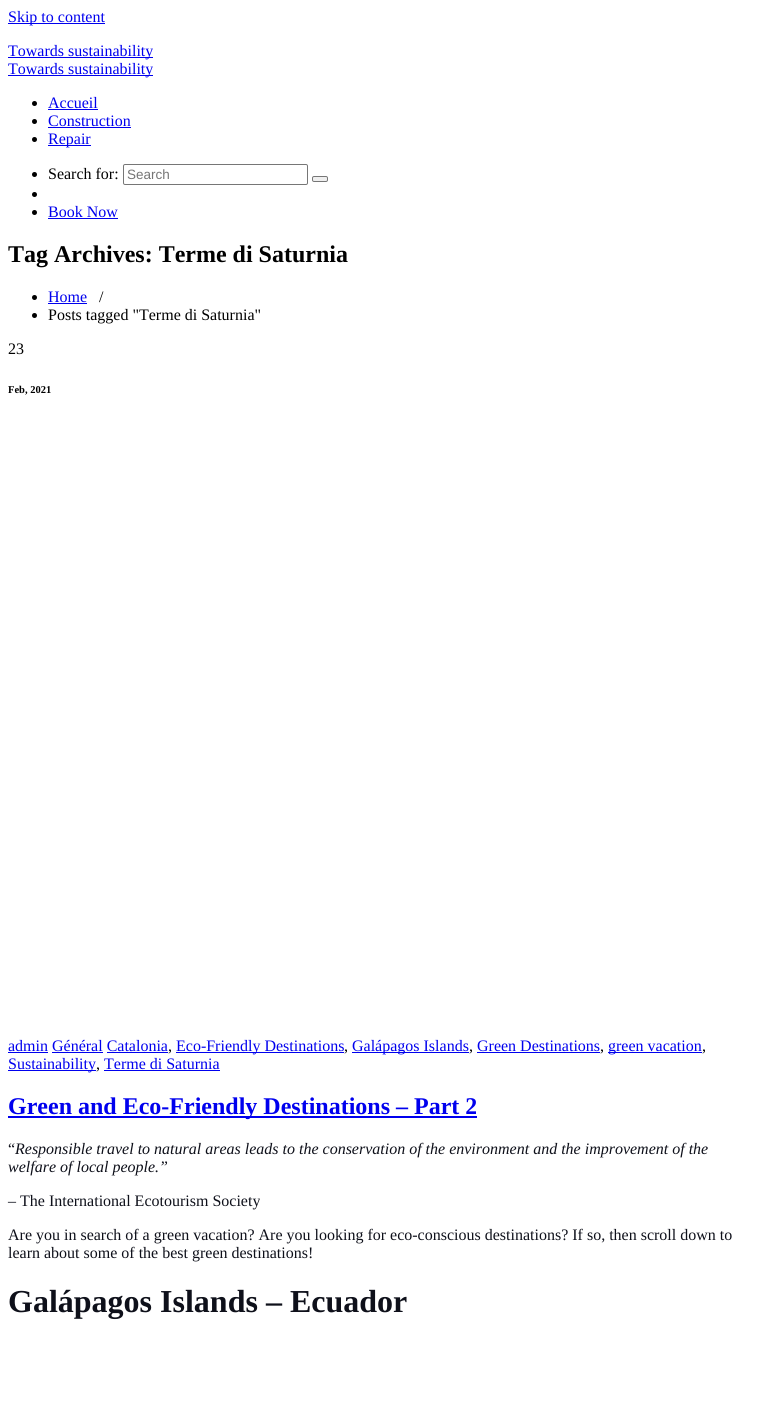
#include <cairo/cairo.h>
#include <math.h>
#include <stddef.h>


static void rounded_rect(cairo_t *cr, double x, double y, double w, double h, double r) {
  cairo_new_sub_path(cr);
  cairo_arc(cr, x + w - r, y + h - r, r, 0, M_PI / 2);
  cairo_arc(cr, x + r, y + h - r, r, M_PI / 2, M_PI);
  cairo_arc(cr, x + r, y + r, r, M_PI, 1.5 * M_PI);
  cairo_arc(cr, x + w - r, y + r, r, 1.5 * M_PI, 2 * M_PI);
  cairo_close_path(cr);
}

static void draw(cairo_t *cr) {
  cairo_set_source_rgb(cr, 1, 1, 1);
  cairo_paint(cr);
  cairo_set_source_rgb(cr, 0, 0, 238 / 255.0);
  cairo_rectangle(cr, 8, 23, 97, 1);
  cairo_fill(cr);
  cairo_rectangle(cr, 8, 57, 145, 1);
  cairo_fill(cr);
  cairo_rectangle(cr, 8, 75, 145, 1);
  cairo_fill(cr);
  cairo_set_source_rgb(cr, 0, 0, 0);
  cairo_arc(cr, 34.5, 103.5, 2.5, 0, 2 * M_PI);
  cairo_fill(cr);
  cairo_set_source_rgb(cr, 0, 0, 238 / 255.0);
  cairo_rectangle(cr, 48, 109, 50, 1);
  cairo_fill(cr);
  cairo_set_source_rgb(cr, 0, 0, 0);
  cairo_arc(cr, 34.5, 121.5, 2.5, 0, 2 * M_PI);
  cairo_fill(cr);
  cairo_set_source_rgb(cr, 0, 0, 238 / 255.0);
  cairo_rectangle(cr, 48, 127, 83, 1);
  cairo_fill(cr);
  cairo_set_source_rgb(cr, 0, 0, 0);
  cairo_arc(cr, 34.5, 139.5, 2.5, 0, 2 * M_PI);
  cairo_fill(cr);
  cairo_set_source_rgb(cr, 0, 0, 238 / 255.0);
  cairo_rectangle(cr, 48, 145, 43, 1);
  cairo_fill(cr);
  cairo_set_source_rgb(cr, 0, 0, 0);
  cairo_arc(cr, 34.5, 174.5, 2.5, 0, 2 * M_PI);
  cairo_fill(cr);
  rounded_rect(cr, 123.5, 164.5, 184, 20, 1.5);
  cairo_set_source_rgb(cr, 118 / 255.0, 118 / 255.0, 118 / 255.0);
  cairo_set_line_width(cr, 1);
  cairo_stroke(cr);
  cairo_set_source_rgb(cr, 239 / 255.0, 239 / 255.0, 239 / 255.0);
  rounded_rect(cr, 312.5, 176.5, 15, 5, 1.5);
  cairo_fill_preserve(cr);
  cairo_set_source_rgb(cr, 118 / 255.0, 118 / 255.0, 118 / 255.0);
  cairo_stroke(cr);
  cairo_set_source_rgb(cr, 0, 0, 0);
  cairo_arc(cr, 34.5, 194.5, 2.5, 0, 2 * M_PI);
  cairo_fill(cr);
  cairo_arc(cr, 34.5, 212.5, 2.5, 0, 2 * M_PI);
  cairo_fill(cr);
  cairo_set_source_rgb(cr, 0, 0, 238 / 255.0);
  cairo_rectangle(cr, 48, 218, 70, 1);
  cairo_fill(cr);
  cairo_set_source_rgb(cr, 0, 0, 0);
  cairo_arc(cr, 34.5, 297.5, 2.5, 0, 2 * M_PI);
  cairo_fill(cr);
  cairo_set_source_rgb(cr, 0, 0, 238 / 255.0);
  cairo_rectangle(cr, 48, 303, 39, 1);
  cairo_fill(cr);
  cairo_set_source_rgb(cr, 0, 0, 0);
  cairo_arc(cr, 34.5, 315.5, 2.5, 0, 2 * M_PI);
  cairo_fill(cr);
  cairo_set_source_rgb(cr, 0, 0, 238 / 255.0);
  cairo_rectangle(cr, 8, 1052, 40, 1);
  cairo_fill(cr);
  cairo_rectangle(cr, 107, 1052, 61, 1);
  cairo_fill(cr);
  cairo_rectangle(cr, 176, 1052, 168, 1);
  cairo_fill(cr);
  cairo_rectangle(cr, 352, 1052, 117, 1);
  cairo_fill(cr);
  cairo_rectangle(cr, 477, 1052, 123, 1);
  cairo_fill(cr);
  cairo_rectangle(cr, 608, 1052, 94, 1);
  cairo_fill(cr);
  cairo_rectangle(cr, 52, 1052, 51, 1);
  cairo_fill(cr);
  cairo_rectangle(cr, 8, 1070, 88, 1);
  cairo_fill(cr);
  cairo_rectangle(cr, 104, 1070, 116, 1);
  cairo_fill(cr);
  cairo_rectangle(cr, 8, 1116, 469, 2);
  cairo_fill(cr);
  cairo_select_font_face(cr, "Liberation Serif", CAIRO_FONT_SLANT_NORMAL, CAIRO_FONT_WEIGHT_NORMAL);
  cairo_set_font_size(cr, 16);
  cairo_move_to(cr, 8, 22);
  cairo_show_text(cr, "Skip to content");
  cairo_move_to(cr, 8, 56);
  cairo_show_text(cr, "Towards sustainability");
  cairo_move_to(cr, 8, 74);
  cairo_show_text(cr, "Towards sustainability");
  cairo_move_to(cr, 48, 108);
  cairo_show_text(cr, "Accueil");
  cairo_move_to(cr, 48, 126);
  cairo_show_text(cr, "Construction");
  cairo_move_to(cr, 48, 144);
  cairo_show_text(cr, "Repair");
  cairo_set_source_rgb(cr, 0, 0, 0);
  cairo_move_to(cr, 48, 179);
  cairo_show_text(cr, "Search for:");
  cairo_select_font_face(cr, "Liberation Sans", CAIRO_FONT_SLANT_NORMAL, CAIRO_FONT_WEIGHT_NORMAL);
  cairo_set_font_size(cr, 13.5);
  cairo_set_source_rgb(cr, 117 / 255.0, 117 / 255.0, 117 / 255.0);
  cairo_move_to(cr, 127, 179);
  cairo_show_text(cr, "Search");
  cairo_select_font_face(cr, "Liberation Serif", CAIRO_FONT_SLANT_NORMAL, CAIRO_FONT_WEIGHT_NORMAL);
  cairo_set_font_size(cr, 16);
  cairo_set_source_rgb(cr, 0, 0, 238 / 255.0);
  cairo_move_to(cr, 48, 217);
  cairo_show_text(cr, "Book Now");
  cairo_select_font_face(cr, "Liberation Serif", CAIRO_FONT_SLANT_NORMAL, CAIRO_FONT_WEIGHT_BOLD);
  cairo_set_font_size(cr, 24);
  cairo_set_source_rgb(cr, 0, 0, 0);
  cairo_move_to(cr, 8, 262);
  cairo_show_text(cr, "Tag Archives: Terme di Saturnia");
  cairo_select_font_face(cr, "Liberation Serif", CAIRO_FONT_SLANT_NORMAL, CAIRO_FONT_WEIGHT_NORMAL);
  cairo_set_font_size(cr, 16);
  cairo_set_source_rgb(cr, 0, 0, 238 / 255.0);
  cairo_move_to(cr, 48, 302);
  cairo_show_text(cr, "Home");
  cairo_set_source_rgb(cr, 0, 0, 0);
  cairo_move_to(cr, 99, 302);
  cairo_show_text(cr, "/");
  cairo_move_to(cr, 48, 320);
  cairo_show_text(cr, "Posts tagged \"Terme di Saturnia\"");
  cairo_move_to(cr, 8, 354);
  cairo_show_text(cr, "23");
  cairo_select_font_face(cr, "Liberation Serif", CAIRO_FONT_SLANT_NORMAL, CAIRO_FONT_WEIGHT_BOLD);
  cairo_set_font_size(cr, 10.5);
  cairo_move_to(cr, 8, 393);
  cairo_show_text(cr, "Feb, 2021");
  cairo_select_font_face(cr, "Liberation Serif", CAIRO_FONT_SLANT_NORMAL, CAIRO_FONT_WEIGHT_NORMAL);
  cairo_set_font_size(cr, 16);
  cairo_set_source_rgb(cr, 0, 0, 238 / 255.0);
  cairo_move_to(cr, 8, 1051);
  cairo_show_text(cr, "admin Général Catalonia");
  cairo_set_source_rgb(cr, 0, 0, 0);
  cairo_move_to(cr, 168, 1051);
  cairo_show_text(cr, ",");
  cairo_set_source_rgb(cr, 0, 0, 238 / 255.0);
  cairo_move_to(cr, 176, 1051);
  cairo_show_text(cr, "Eco-Friendly Destinations");
  cairo_set_source_rgb(cr, 0, 0, 0);
  cairo_move_to(cr, 344, 1051);
  cairo_show_text(cr, ",");
  cairo_set_source_rgb(cr, 0, 0, 238 / 255.0);
  cairo_move_to(cr, 352, 1051);
  cairo_show_text(cr, "Galápagos Islands");
  cairo_set_source_rgb(cr, 0, 0, 0);
  cairo_move_to(cr, 469, 1051);
  cairo_show_text(cr, ",");
  cairo_set_source_rgb(cr, 0, 0, 238 / 255.0);
  cairo_move_to(cr, 477, 1051);
  cairo_show_text(cr, "Green Destinations");
  cairo_set_source_rgb(cr, 0, 0, 0);
  cairo_move_to(cr, 600, 1051);
  cairo_show_text(cr, ",");
  cairo_set_source_rgb(cr, 0, 0, 238 / 255.0);
  cairo_move_to(cr, 608, 1051);
  cairo_show_text(cr, "green vacation");
  cairo_set_source_rgb(cr, 0, 0, 0);
  cairo_move_to(cr, 702, 1051);
  cairo_show_text(cr, ",");
  cairo_set_source_rgb(cr, 0, 0, 238 / 255.0);
  cairo_move_to(cr, 8, 1069);
  cairo_show_text(cr, "Sustainability");
  cairo_set_source_rgb(cr, 0, 0, 0);
  cairo_move_to(cr, 96, 1069);
  cairo_show_text(cr, ",");
  cairo_set_source_rgb(cr, 0, 0, 238 / 255.0);
  cairo_move_to(cr, 104, 1069);
  cairo_show_text(cr, "Terme di Saturnia");
  cairo_select_font_face(cr, "Liberation Serif", CAIRO_FONT_SLANT_NORMAL, CAIRO_FONT_WEIGHT_BOLD);
  cairo_set_font_size(cr, 24);
  cairo_move_to(cr, 8, 1114);
  cairo_show_text(cr, "Green and Eco-Friendly Destinations – Part 2");
  cairo_select_font_face(cr, "Liberation Serif", CAIRO_FONT_SLANT_NORMAL, CAIRO_FONT_WEIGHT_NORMAL);
  cairo_set_font_size(cr, 16);
  cairo_set_source_rgb(cr, 14 / 255.0, 16 / 255.0, 26 / 255.0);
  cairo_move_to(cr, 8, 1154);
  cairo_show_text(cr, "“");
  cairo_select_font_face(cr, "Liberation Serif", CAIRO_FONT_SLANT_ITALIC, CAIRO_FONT_WEIGHT_NORMAL);
  cairo_move_to(cr, 15, 1154);
  cairo_show_text(cr, "Responsible travel to natural areas leads to the conservation of the environment and the improvement of the");
  cairo_move_to(cr, 8, 1172);
  cairo_show_text(cr, "welfare of local people.”");
  cairo_select_font_face(cr, "Liberation Serif", CAIRO_FONT_SLANT_NORMAL, CAIRO_FONT_WEIGHT_NORMAL);
  cairo_move_to(cr, 8, 1206);
  cairo_show_text(cr, "– The International Ecotourism Society");
  cairo_move_to(cr, 8, 1240);
  cairo_show_text(cr, "Are you in search of a green vacation? Are you looking for eco-conscious destinations? If so, then scroll down to");
  cairo_move_to(cr, 8, 1258);
  cairo_show_text(cr, "learn about some of the best green destinations!");
  cairo_select_font_face(cr, "Liberation Serif", CAIRO_FONT_SLANT_NORMAL, CAIRO_FONT_WEIGHT_BOLD);
  cairo_set_font_size(cr, 32);
  cairo_move_to(cr, 8, 1312);
  cairo_show_text(cr, "Galápagos Islands – Ecuador");
}

int main(void) {
  cairo_surface_t *surface = cairo_image_surface_create(CAIRO_FORMAT_RGB24, 762, 1414);
  cairo_t *cr = cairo_create(surface);
  cairo_font_options_t *options = cairo_font_options_create();
  cairo_font_options_set_hint_metrics(options, CAIRO_HINT_METRICS_OFF);
  cairo_font_options_set_hint_style(options, CAIRO_HINT_STYLE_NONE);
  cairo_set_font_options(cr, options);
  cairo_set_miter_limit(cr, 4);
  draw(cr);
  cairo_surface_write_to_png(surface, "out.png");
  cairo_font_options_destroy(options);
  cairo_destroy(cr);
  cairo_surface_destroy(surface);
  return 0;
}
